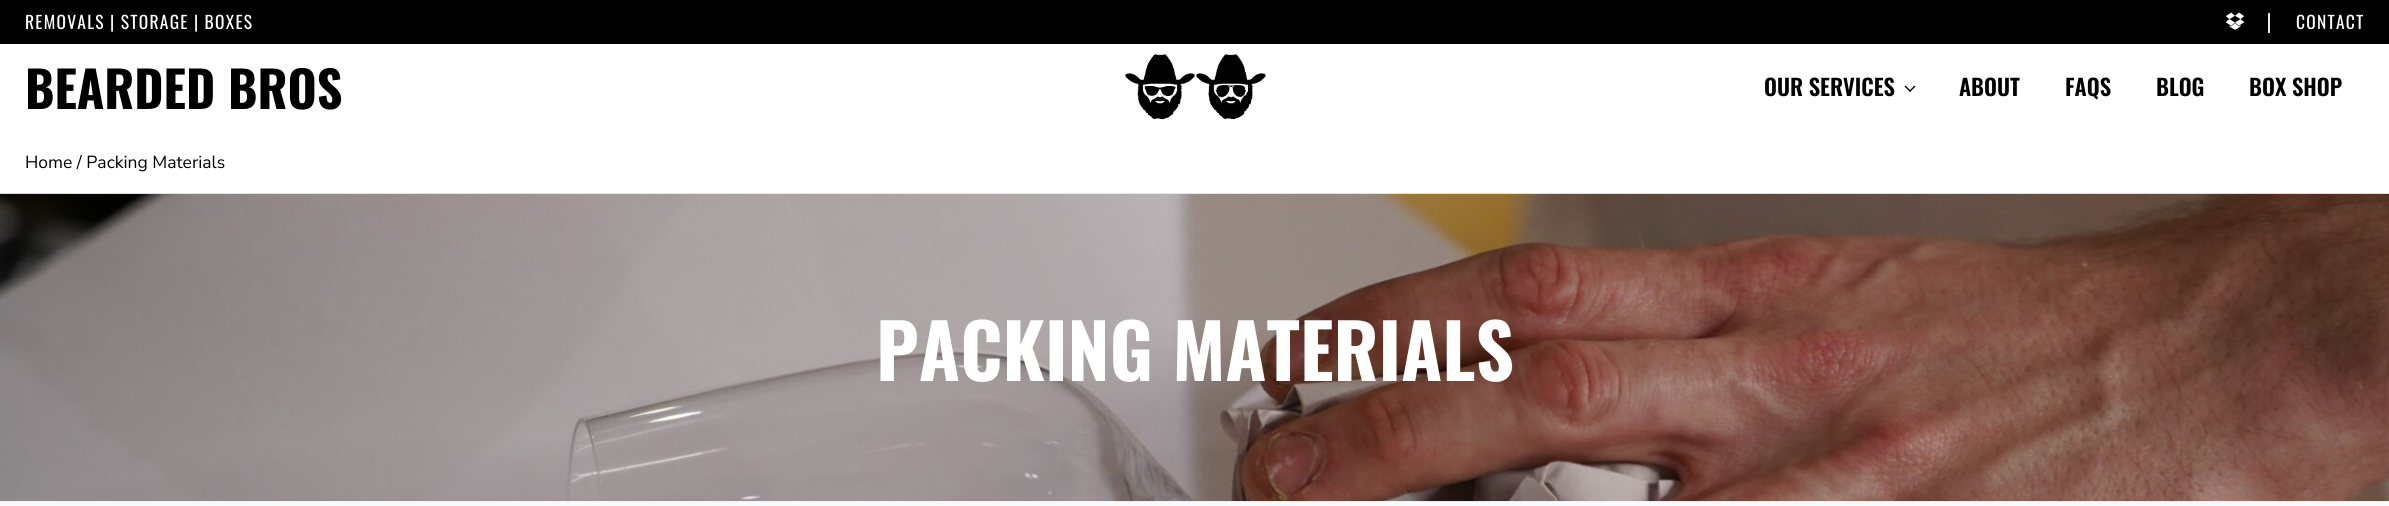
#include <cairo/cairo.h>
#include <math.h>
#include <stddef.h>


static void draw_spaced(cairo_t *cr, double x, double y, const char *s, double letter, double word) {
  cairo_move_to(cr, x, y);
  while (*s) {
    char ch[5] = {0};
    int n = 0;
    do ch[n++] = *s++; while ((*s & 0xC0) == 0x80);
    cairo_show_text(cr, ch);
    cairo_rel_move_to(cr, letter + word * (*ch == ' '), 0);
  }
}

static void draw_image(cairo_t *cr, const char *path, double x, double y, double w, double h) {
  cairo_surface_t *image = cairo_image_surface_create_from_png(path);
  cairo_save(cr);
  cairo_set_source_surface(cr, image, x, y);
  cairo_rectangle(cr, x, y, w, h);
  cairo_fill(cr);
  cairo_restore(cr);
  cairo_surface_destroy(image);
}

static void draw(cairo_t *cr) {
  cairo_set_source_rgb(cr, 1, 1, 1);
  cairo_paint(cr);
  cairo_set_source_rgb(cr, 0, 0, 0);
  cairo_rectangle(cr, 0, 0, 2389, 44);
  cairo_fill(cr);
  draw_image(cr, "images/1.png", 2225, 12, 20, 18);
  draw_image(cr, "images/2.png", 1125, 54, 141, 66);
  cairo_new_path(cr);
  cairo_move_to(cr, 1915.5, 86.5);
  cairo_line_to(cr, 1910, 92);
  cairo_line_to(cr, 1909, 91);
  cairo_line_to(cr, 1914.5, 85.5);
  cairo_close_path(cr);
  cairo_fill(cr);
  cairo_new_path(cr);
  cairo_move_to(cr, 1911, 91);
  cairo_line_to(cr, 1910, 92);
  cairo_line_to(cr, 1904.5, 86.5);
  cairo_line_to(cr, 1905.5, 85.5);
  cairo_close_path(cr);
  cairo_fill(cr);
  cairo_set_source_rgb(cr, 234 / 255.0, 234 / 255.0, 234 / 255.0);
  cairo_rectangle(cr, 0, 193, 2389, 1);
  cairo_fill(cr);
  cairo_set_source_rgb(cr, 248 / 255.0, 249 / 255.0, 250 / 255.0);
  cairo_rectangle(cr, 0, 501, 2389, 5);
  cairo_fill(cr);
  draw_image(cr, "images/3.png", 0, 193, 2389, 309);
  cairo_select_font_face(cr, "Oswald", CAIRO_FONT_SLANT_NORMAL, CAIRO_FONT_WEIGHT_NORMAL);
  cairo_set_font_size(cr, 17.5);
  cairo_set_source_rgb(cr, 1, 1, 1);
  draw_spaced(cr, 25, 29, "REMOVALS | STORAGE | BOXES", 1.25, 0);
  cairo_select_font_face(cr, "Nunito Sans", CAIRO_FONT_SLANT_NORMAL, CAIRO_FONT_WEIGHT_NORMAL);
  cairo_set_font_size(cr, 22.5);
  cairo_move_to(cr, 2266, 29);
  cairo_show_text(cr, "|");
  cairo_select_font_face(cr, "Oswald", CAIRO_FONT_SLANT_NORMAL, CAIRO_FONT_WEIGHT_NORMAL);
  cairo_set_font_size(cr, 17.5);
  draw_spaced(cr, 2296, 29, "CONTACT", 1.25, 0);
  cairo_select_font_face(cr, "Oswald", CAIRO_FONT_SLANT_NORMAL, CAIRO_FONT_WEIGHT_BOLD);
  cairo_set_font_size(cr, 50);
  cairo_set_source_rgb(cr, 0, 0, 0);
  cairo_move_to(cr, 25, 109);
  cairo_show_text(cr, "BEARDED BROS");
  cairo_select_font_face(cr, "Oswald SemiBold", CAIRO_FONT_SLANT_NORMAL, CAIRO_FONT_WEIGHT_NORMAL);
  cairo_set_font_size(cr, 22.5);
  cairo_move_to(cr, 1764, 96);
  cairo_show_text(cr, "OUR SERVICES");
  cairo_move_to(cr, 1959, 96);
  cairo_show_text(cr, "ABOUT");
  cairo_move_to(cr, 2065, 96);
  cairo_show_text(cr, "FAQS");
  cairo_move_to(cr, 2156, 96);
  cairo_show_text(cr, "BLOG");
  cairo_move_to(cr, 2249, 96);
  cairo_show_text(cr, "BOX SHOP");
  cairo_select_font_face(cr, "Nunito Sans", CAIRO_FONT_SLANT_NORMAL, CAIRO_FONT_WEIGHT_NORMAL);
  cairo_set_font_size(cr, 17.5);
  cairo_move_to(cr, 25, 168);
  cairo_show_text(cr, "Home / Packing Materials");
  cairo_select_font_face(cr, "Oswald", CAIRO_FONT_SLANT_NORMAL, CAIRO_FONT_WEIGHT_BOLD);
  cairo_set_font_size(cr, 75);
  cairo_set_source_rgb(cr, 1, 1, 1);
  cairo_move_to(cr, 876, 381);
  cairo_show_text(cr, "PACKING MATERIALS");
}

int main(void) {
  cairo_surface_t *surface = cairo_image_surface_create(CAIRO_FORMAT_RGB24, 2389, 506);
  cairo_t *cr = cairo_create(surface);
  cairo_font_options_t *options = cairo_font_options_create();
  cairo_font_options_set_hint_metrics(options, CAIRO_HINT_METRICS_OFF);
  cairo_font_options_set_hint_style(options, CAIRO_HINT_STYLE_NONE);
  cairo_set_font_options(cr, options);
  cairo_set_miter_limit(cr, 4);
  draw(cr);
  cairo_surface_write_to_png(surface, "out.png");
  cairo_font_options_destroy(options);
  cairo_destroy(cr);
  cairo_surface_destroy(surface);
  return 0;
}
